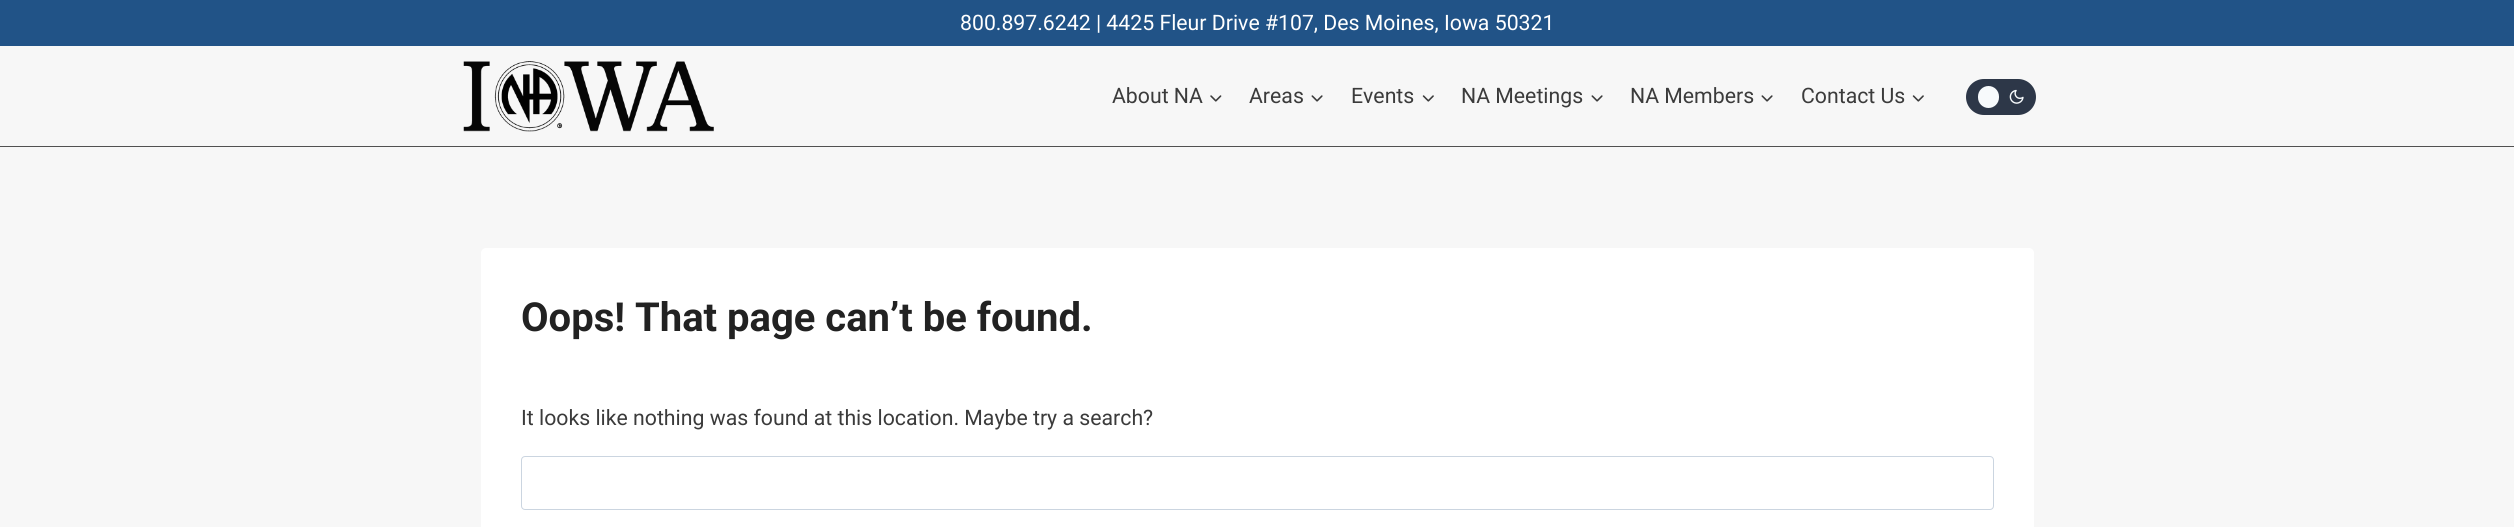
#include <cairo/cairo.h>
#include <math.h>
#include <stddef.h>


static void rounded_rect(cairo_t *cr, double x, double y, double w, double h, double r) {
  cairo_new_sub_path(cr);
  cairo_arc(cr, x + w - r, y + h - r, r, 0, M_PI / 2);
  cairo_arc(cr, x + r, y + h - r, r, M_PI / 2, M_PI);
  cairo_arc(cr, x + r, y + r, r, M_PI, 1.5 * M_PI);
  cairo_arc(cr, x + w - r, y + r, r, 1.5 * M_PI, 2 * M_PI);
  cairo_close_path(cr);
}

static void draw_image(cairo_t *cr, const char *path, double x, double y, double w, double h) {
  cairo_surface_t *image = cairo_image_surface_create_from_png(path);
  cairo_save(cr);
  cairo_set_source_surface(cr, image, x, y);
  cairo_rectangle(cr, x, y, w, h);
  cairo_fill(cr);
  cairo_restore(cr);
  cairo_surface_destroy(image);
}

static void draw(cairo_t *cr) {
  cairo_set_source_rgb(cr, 247 / 255.0, 247 / 255.0, 247 / 255.0);
  cairo_paint(cr);
  cairo_set_source_rgb(cr, 33 / 255.0, 83 / 255.0, 135 / 255.0);
  cairo_rectangle(cr, 0, 0, 2514, 46);
  cairo_fill(cr);
  cairo_set_source_rgb(cr, 81 / 255.0, 81 / 255.0, 81 / 255.0);
  cairo_rectangle(cr, 0, 146, 2514, 1);
  cairo_fill(cr);
  draw_image(cr, "images/1.png", 463, 61, 251, 71);
  draw_image(cr, "images/2.png", 1210, 95, 12, 7);
  draw_image(cr, "images/3.png", 1311, 95, 12, 7);
  draw_image(cr, "images/4.png", 1422, 95, 12, 7);
  draw_image(cr, "images/3.png", 1591, 95, 12, 7);
  draw_image(cr, "images/3.png", 1761, 95, 12, 7);
  draw_image(cr, "images/4.png", 1912, 95, 12, 7);
  cairo_set_source_rgb(cr, 45 / 255.0, 55 / 255.0, 72 / 255.0);
  rounded_rect(cr, 1966, 79, 70, 36, 18);
  cairo_fill(cr);
  cairo_set_source_rgb(cr, 247 / 255.0, 250 / 255.0, 252 / 255.0);
  rounded_rect(cr, 1978, 86, 21, 22, 10.5);
  cairo_fill(cr);
  draw_image(cr, "images/5.png", 2009, 89, 15, 15);
  cairo_set_source_rgb(cr, 1, 1, 1);
  rounded_rect(cr, 481, 248, 1553, 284, 5);
  cairo_fill(cr);
  rounded_rect(cr, 521.5, 456.5, 1472, 53, 3.5);
  cairo_set_source_rgb(cr, 203 / 255.0, 213 / 255.0, 224 / 255.0);
  cairo_set_line_width(cr, 1);
  cairo_stroke(cr);
  cairo_select_font_face(cr, "Roboto", CAIRO_FONT_SLANT_NORMAL, CAIRO_FONT_WEIGHT_NORMAL);
  cairo_set_font_size(cr, 21.25);
  cairo_set_source_rgb(cr, 1, 1, 1);
  cairo_move_to(cr, 960, 30);
  cairo_show_text(cr, "800.897.6242 | 4425 Fleur Drive #107, Des Moines, Iowa 50321");
  cairo_set_source_rgb(cr, 59 / 255.0, 59 / 255.0, 59 / 255.0);
  cairo_move_to(cr, 1112, 103);
  cairo_show_text(cr, "About NA");
  cairo_move_to(cr, 1249, 103);
  cairo_show_text(cr, "Areas");
  cairo_move_to(cr, 1351, 103);
  cairo_show_text(cr, "Events");
  cairo_move_to(cr, 1461, 103);
  cairo_show_text(cr, "NA Meetings");
  cairo_move_to(cr, 1630, 103);
  cairo_show_text(cr, "NA Members");
  cairo_move_to(cr, 1801, 103);
  cairo_show_text(cr, "Contact Us");
  cairo_select_font_face(cr, "Roboto", CAIRO_FONT_SLANT_NORMAL, CAIRO_FONT_WEIGHT_BOLD);
  cairo_set_font_size(cr, 40);
  cairo_set_source_rgb(cr, 34 / 255.0, 34 / 255.0, 34 / 255.0);
  cairo_move_to(cr, 521, 331);
  cairo_show_text(cr, "Oops! That page can’t be found.");
  cairo_select_font_face(cr, "Roboto", CAIRO_FONT_SLANT_NORMAL, CAIRO_FONT_WEIGHT_NORMAL);
  cairo_set_font_size(cr, 21.25);
  cairo_set_source_rgb(cr, 59 / 255.0, 59 / 255.0, 59 / 255.0);
  cairo_move_to(cr, 521, 425);
  cairo_show_text(cr, "It looks like nothing was found at this location. Maybe try a search?");
}

int main(void) {
  cairo_surface_t *surface = cairo_image_surface_create(CAIRO_FORMAT_RGB24, 2514, 527);
  cairo_t *cr = cairo_create(surface);
  cairo_font_options_t *options = cairo_font_options_create();
  cairo_font_options_set_hint_metrics(options, CAIRO_HINT_METRICS_OFF);
  cairo_font_options_set_hint_style(options, CAIRO_HINT_STYLE_NONE);
  cairo_set_font_options(cr, options);
  cairo_set_miter_limit(cr, 4);
  draw(cr);
  cairo_surface_write_to_png(surface, "out.png");
  cairo_font_options_destroy(options);
  cairo_destroy(cr);
  cairo_surface_destroy(surface);
  return 0;
}
